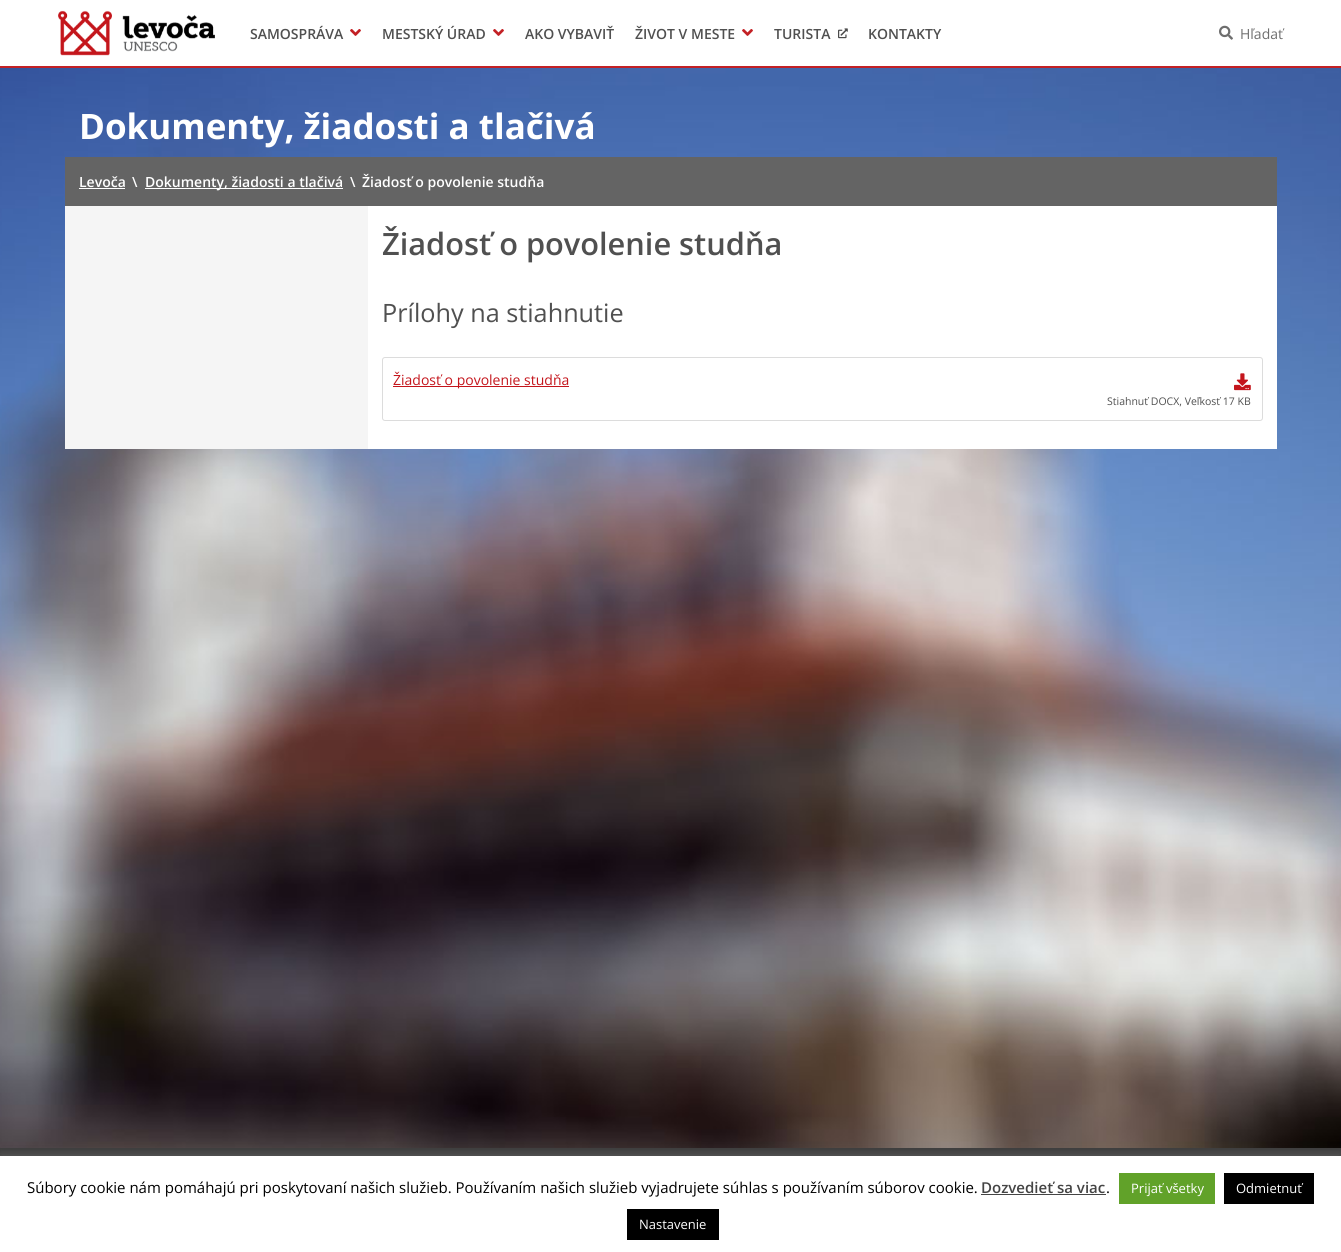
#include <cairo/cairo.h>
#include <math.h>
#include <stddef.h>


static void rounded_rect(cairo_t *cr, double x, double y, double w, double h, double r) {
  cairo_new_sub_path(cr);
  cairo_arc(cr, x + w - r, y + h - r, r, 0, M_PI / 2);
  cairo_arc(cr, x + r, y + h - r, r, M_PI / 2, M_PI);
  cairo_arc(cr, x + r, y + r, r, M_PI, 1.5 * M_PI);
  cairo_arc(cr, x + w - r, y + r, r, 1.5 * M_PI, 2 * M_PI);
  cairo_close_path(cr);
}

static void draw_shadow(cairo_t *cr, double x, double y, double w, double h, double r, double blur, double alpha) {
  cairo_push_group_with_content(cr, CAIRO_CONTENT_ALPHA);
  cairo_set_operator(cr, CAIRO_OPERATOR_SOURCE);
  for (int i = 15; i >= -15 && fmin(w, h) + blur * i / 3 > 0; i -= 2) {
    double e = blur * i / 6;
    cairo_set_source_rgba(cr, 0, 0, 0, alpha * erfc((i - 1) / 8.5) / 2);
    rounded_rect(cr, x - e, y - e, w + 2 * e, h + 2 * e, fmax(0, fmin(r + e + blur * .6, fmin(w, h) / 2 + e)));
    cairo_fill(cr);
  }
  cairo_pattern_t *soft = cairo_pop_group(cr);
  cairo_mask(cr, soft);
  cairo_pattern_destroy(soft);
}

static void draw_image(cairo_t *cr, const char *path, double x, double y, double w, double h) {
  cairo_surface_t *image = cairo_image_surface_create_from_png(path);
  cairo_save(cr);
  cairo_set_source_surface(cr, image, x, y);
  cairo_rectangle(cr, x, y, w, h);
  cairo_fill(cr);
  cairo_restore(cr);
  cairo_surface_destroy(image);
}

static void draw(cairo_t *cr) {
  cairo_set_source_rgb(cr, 1, 1, 1);
  cairo_paint(cr);
  draw_image(cr, "images/1.png", 0, 68, 1341, 1080);
  draw_image(cr, "images/2.png", 58, 10, 157, 46);
  draw_image(cr, "images/3.png", 350, 29, 11, 7);
  draw_image(cr, "images/3.png", 493, 29, 11, 7);
  draw_image(cr, "images/3.png", 742, 29, 11, 7);
  draw_image(cr, "images/4.png", 838, 28, 10, 11);
  draw_image(cr, "images/5.png", 1219, 25, 14, 15);
  cairo_set_source_rgb(cr, 195 / 255.0, 33 / 255.0, 37 / 255.0);
  cairo_rectangle(cr, 0, 66, 58, 2);
  cairo_fill(cr);
  cairo_rectangle(cr, 58, 66, 1283, 2);
  cairo_fill(cr);
  cairo_set_source_rgb(cr, 100 / 255.0, 100 / 255.0, 100 / 255.0);
  cairo_rectangle(cr, 65, 157, 1212, 49);
  cairo_fill(cr);
  cairo_set_source_rgb(cr, 1, 1, 1);
  cairo_rectangle(cr, 79, 188, 46, 1);
  cairo_fill(cr);
  cairo_rectangle(cr, 145, 188, 198, 1);
  cairo_fill(cr);
  cairo_set_source_rgb(cr, 245 / 255.0, 245 / 255.0, 245 / 255.0);
  cairo_rectangle(cr, 65, 206, 303, 243);
  cairo_fill(cr);
  cairo_set_source_rgb(cr, 1, 1, 1);
  cairo_rectangle(cr, 368, 206, 909, 243);
  cairo_fill(cr);
  rounded_rect(cr, 382.5, 357.5, 880, 63, 2.5);
  cairo_set_source_rgb(cr, 220 / 255.0, 220 / 255.0, 220 / 255.0);
  cairo_set_line_width(cr, 1);
  cairo_stroke(cr);
  cairo_set_source_rgb(cr, 196 / 255.0, 21 / 255.0, 28 / 255.0);
  cairo_rectangle(cr, 393, 386, 176, 1);
  cairo_fill(cr);
  draw_image(cr, "images/6.png", 1234, 373, 17, 18);
  cairo_set_source_rgb(cr, 60 / 255.0, 60 / 255.0, 60 / 255.0);
  cairo_rectangle(cr, 0, 1148, 1341, 8);
  cairo_fill(cr);
  cairo_set_source_rgb(cr, 172 / 255.0, 171 / 255.0, 171 / 255.0);
  draw_shadow(cr, 0, 1155, 1341, 96, 0, 5, 0.3);
  cairo_set_source_rgb(cr, 1, 1, 1);
  cairo_rectangle(cr, 0, 1156, 1341, 96);
  cairo_fill(cr);
  cairo_set_source_rgb(cr, 68 / 255.0, 68 / 255.0, 68 / 255.0);
  cairo_rectangle(cr, 981, 1194, 125, 1);
  cairo_fill(cr);
  cairo_set_source_rgb(cr, 97 / 255.0, 162 / 255.0, 41 / 255.0);
  cairo_rectangle(cr, 1119, 1173, 96, 31);
  cairo_fill(cr);
  cairo_set_source_rgb(cr, 0, 0, 0);
  cairo_rectangle(cr, 1224, 1173, 90, 31);
  cairo_fill(cr);
  cairo_rectangle(cr, 627, 1209, 92, 31);
  cairo_fill(cr);
  cairo_select_font_face(cr, "Open Sans SemiBold", CAIRO_FONT_SLANT_NORMAL, CAIRO_FONT_WEIGHT_NORMAL);
  cairo_set_font_size(cr, 14);
  cairo_set_source_rgb(cr, 80 / 255.0, 80 / 255.0, 80 / 255.0);
  cairo_move_to(cr, 250, 39);
  cairo_show_text(cr, "SAMOSPRÁVA");
  cairo_move_to(cr, 382, 39);
  cairo_show_text(cr, "MESTSKÝ ÚRAD");
  cairo_move_to(cr, 525, 39);
  cairo_show_text(cr, "AKO VYBAVIŤ");
  cairo_move_to(cr, 635, 39);
  cairo_show_text(cr, "ŽIVOT V MESTE");
  cairo_move_to(cr, 774, 39);
  cairo_show_text(cr, "TURISTA");
  cairo_move_to(cr, 868, 39);
  cairo_show_text(cr, "KONTAKTY");
  cairo_select_font_face(cr, "Open Sans", CAIRO_FONT_SLANT_NORMAL, CAIRO_FONT_WEIGHT_NORMAL);
  cairo_set_source_rgb(cr, 110 / 255.0, 110 / 255.0, 110 / 255.0);
  cairo_move_to(cr, 1240, 39);
  cairo_show_text(cr, "Hľadať");
  cairo_select_font_face(cr, "Open Sans", CAIRO_FONT_SLANT_NORMAL, CAIRO_FONT_WEIGHT_BOLD);
  cairo_set_font_size(cr, 35);
  cairo_set_source_rgb(cr, 1, 1, 1);
  cairo_move_to(cr, 79, 139);
  cairo_show_text(cr, "Dokumenty, žiadosti a tlačivá");
  cairo_select_font_face(cr, "Open Sans SemiBold", CAIRO_FONT_SLANT_NORMAL, CAIRO_FONT_WEIGHT_NORMAL);
  cairo_set_font_size(cr, 14);
  cairo_move_to(cr, 79, 187);
  cairo_show_text(cr, "Levoča");
  cairo_move_to(cr, 132, 187);
  cairo_show_text(cr, "\\");
  cairo_move_to(cr, 145, 187);
  cairo_show_text(cr, "Dokumenty, žiadosti a tlačivá");
  cairo_move_to(cr, 350, 187);
  cairo_show_text(cr, "\\");
  cairo_move_to(cr, 362, 187);
  cairo_show_text(cr, "Žiadosť o povolenie studňa");
  cairo_set_font_size(cr, 30.75);
  cairo_set_source_rgb(cr, 80 / 255.0, 80 / 255.0, 80 / 255.0);
  cairo_move_to(cr, 382, 255);
  cairo_show_text(cr, "Žiadosť o povolenie studňa");
  cairo_select_font_face(cr, "Open Sans", CAIRO_FONT_SLANT_NORMAL, CAIRO_FONT_WEIGHT_NORMAL);
  cairo_set_font_size(cr, 25.25);
  cairo_move_to(cr, 382, 322);
  cairo_show_text(cr, "Prílohy na stiahnutie");
  cairo_set_font_size(cr, 14);
  cairo_set_source_rgb(cr, 196 / 255.0, 21 / 255.0, 28 / 255.0);
  cairo_move_to(cr, 393, 385);
  cairo_show_text(cr, "Žiadosť o povolenie studňa");
  cairo_set_font_size(cr, 10.5);
  cairo_set_source_rgb(cr, 80 / 255.0, 80 / 255.0, 80 / 255.0);
  cairo_move_to(cr, 1107, 405);
  cairo_show_text(cr, "Stiahnuť DOCX, Veľkosť 17 KB");
  cairo_set_font_size(cr, 15);
  cairo_set_source_rgb(cr, 0, 0, 0);
  cairo_move_to(cr, 27, 1193);
  cairo_show_text(cr, "Súbory cookie nám pomáhajú pri poskytovaní našich služieb. Používaním našich služieb vyjadrujete súhlas s používaním súborov cookie.");
  cairo_select_font_face(cr, "Open Sans SemiBold", CAIRO_FONT_SLANT_NORMAL, CAIRO_FONT_WEIGHT_NORMAL);
  cairo_set_source_rgb(cr, 68 / 255.0, 68 / 255.0, 68 / 255.0);
  cairo_move_to(cr, 981, 1193);
  cairo_show_text(cr, "Dozvedieť sa viac");
  cairo_select_font_face(cr, "Open Sans", CAIRO_FONT_SLANT_NORMAL, CAIRO_FONT_WEIGHT_NORMAL);
  cairo_set_source_rgb(cr, 0, 0, 0);
  cairo_move_to(cr, 1106, 1193);
  cairo_show_text(cr, ".");
  cairo_set_font_size(cr, 13);
  cairo_set_source_rgb(cr, 1, 1, 1);
  cairo_move_to(cr, 1131, 1193);
  cairo_show_text(cr, "Prijať všetky");
  cairo_move_to(cr, 1236, 1193);
  cairo_show_text(cr, "Odmietnuť");
  cairo_move_to(cr, 639, 1229);
  cairo_show_text(cr, "Nastavenie");
}

int main(void) {
  cairo_surface_t *surface = cairo_image_surface_create(CAIRO_FORMAT_RGB24, 1341, 1252);
  cairo_t *cr = cairo_create(surface);
  cairo_font_options_t *options = cairo_font_options_create();
  cairo_font_options_set_hint_metrics(options, CAIRO_HINT_METRICS_OFF);
  cairo_font_options_set_hint_style(options, CAIRO_HINT_STYLE_NONE);
  cairo_set_font_options(cr, options);
  cairo_set_miter_limit(cr, 4);
  draw(cr);
  cairo_surface_write_to_png(surface, "out.png");
  cairo_font_options_destroy(options);
  cairo_destroy(cr);
  cairo_surface_destroy(surface);
  return 0;
}
